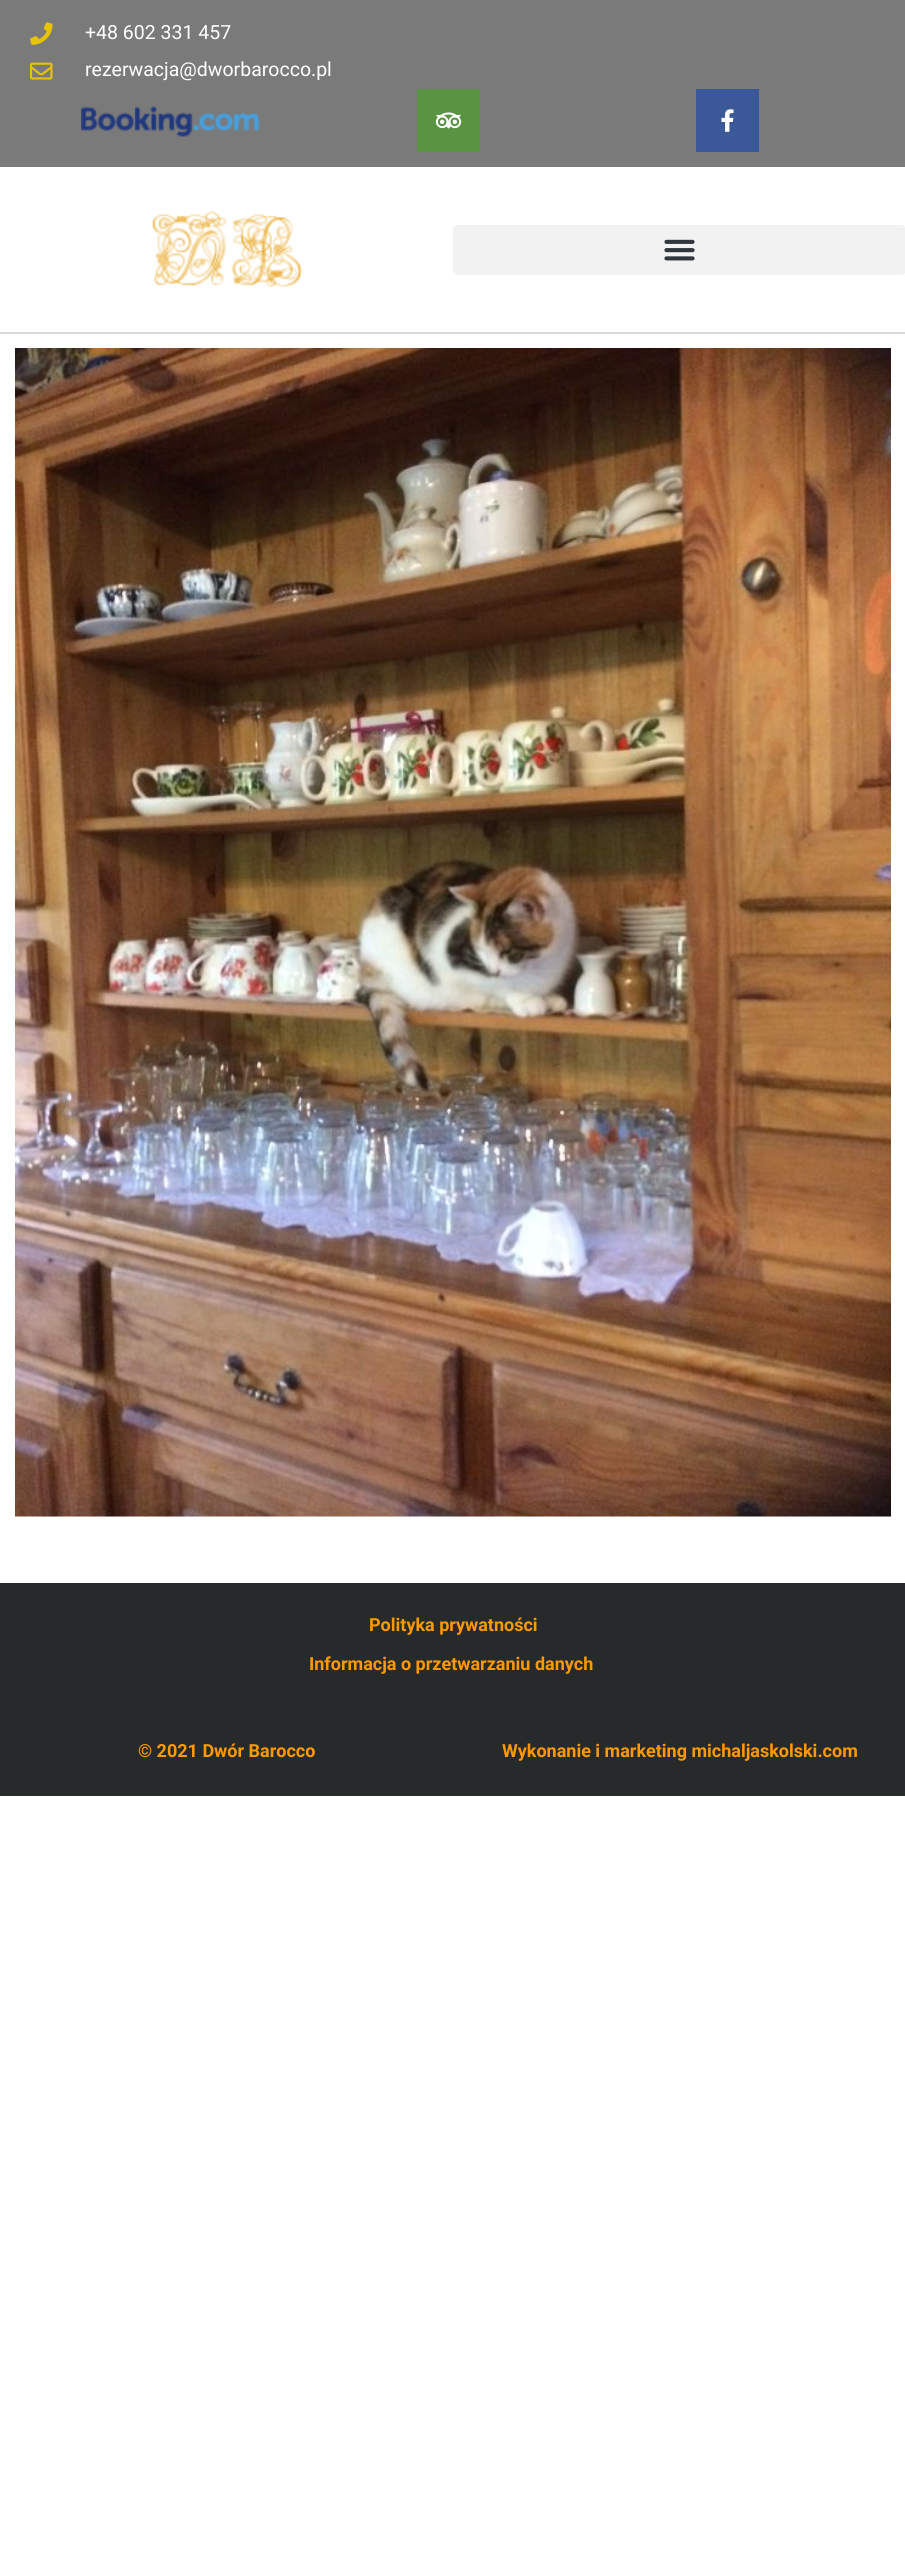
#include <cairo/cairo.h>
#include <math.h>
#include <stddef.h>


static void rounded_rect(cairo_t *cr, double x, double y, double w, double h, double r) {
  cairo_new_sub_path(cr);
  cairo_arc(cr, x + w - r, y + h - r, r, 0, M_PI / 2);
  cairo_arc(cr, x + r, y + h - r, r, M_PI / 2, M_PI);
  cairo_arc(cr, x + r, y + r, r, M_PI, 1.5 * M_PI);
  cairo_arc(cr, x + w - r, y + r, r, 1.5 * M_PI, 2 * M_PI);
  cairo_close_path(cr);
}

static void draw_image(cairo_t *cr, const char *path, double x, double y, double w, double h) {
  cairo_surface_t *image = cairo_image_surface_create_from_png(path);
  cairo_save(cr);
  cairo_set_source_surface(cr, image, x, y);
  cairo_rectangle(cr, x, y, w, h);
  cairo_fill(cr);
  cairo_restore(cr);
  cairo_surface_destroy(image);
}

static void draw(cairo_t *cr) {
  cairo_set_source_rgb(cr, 1, 1, 1);
  cairo_paint(cr);
  cairo_set_source_rgb(cr, 122 / 255.0, 122 / 255.0, 122 / 255.0);
  cairo_rectangle(cr, 0, 0, 905, 167);
  cairo_fill(cr);
  draw_image(cr, "images/1.png", 30, 22, 23, 23);
  draw_image(cr, "images/2.png", 30, 62, 23, 18);
  draw_image(cr, "images/3.png", 81, 106, 179, 31);
  cairo_set_source_rgb(cr, 88 / 255.0, 148 / 255.0, 66 / 255.0);
  cairo_rectangle(cr, 417, 89, 63, 63);
  cairo_fill(cr);
  draw_image(cr, "images/4.png", 435, 112, 27, 17);
  cairo_set_source_rgb(cr, 59 / 255.0, 89 / 255.0, 152 / 255.0);
  cairo_rectangle(cr, 696, 89, 63, 63);
  cairo_fill(cr);
  draw_image(cr, "images/5.png", 721, 109, 13, 23);
  cairo_set_source_rgb(cr, 216 / 255.0, 216 / 255.0, 216 / 255.0);
  cairo_rectangle(cr, 0, 332, 905, 2);
  cairo_fill(cr);
  draw_image(cr, "images/6.png", 152, 211, 150, 76);
  cairo_set_source_rgb(cr, 242 / 255.0, 242 / 255.0, 242 / 255.0);
  rounded_rect(cr, 453, 225, 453, 50, 5);
  cairo_fill(cr);
  draw_image(cr, "images/7.png", 664, 239, 31, 22);
  draw_image(cr, "images/8.png", 15, 348, 876, 1169);
  cairo_set_source_rgb(cr, 38 / 255.0, 42 / 255.0, 43 / 255.0);
  cairo_rectangle(cr, 0, 1583, 905, 213);
  cairo_fill(cr);
  cairo_select_font_face(cr, "Roboto", CAIRO_FONT_SLANT_NORMAL, CAIRO_FONT_WEIGHT_NORMAL);
  cairo_set_font_size(cr, 19.5);
  cairo_set_source_rgb(cr, 1, 1, 1);
  cairo_move_to(cr, 85, 39);
  cairo_show_text(cr, "+48 602 331 457");
  cairo_move_to(cr, 85, 76);
  cairo_show_text(cr, "rezerwacja@dworbarocco.pl");
  cairo_select_font_face(cr, "Roboto", CAIRO_FONT_SLANT_NORMAL, CAIRO_FONT_WEIGHT_BOLD);
  cairo_set_font_size(cr, 18);
  cairo_set_source_rgb(cr, 1, 153 / 255.0, 0);
  cairo_move_to(cr, 369, 1631);
  cairo_show_text(cr, "Polityka prywatności");
  cairo_move_to(cr, 309, 1670);
  cairo_show_text(cr, "Informacja o przetwarzaniu danych");
  cairo_move_to(cr, 138, 1757);
  cairo_show_text(cr, "© 2021 Dwór Barocco");
  cairo_move_to(cr, 502, 1757);
  cairo_show_text(cr, "Wykonanie i marketing michaljaskolski.com");
}

int main(void) {
  cairo_surface_t *surface = cairo_image_surface_create(CAIRO_FORMAT_RGB24, 905, 2565);
  cairo_t *cr = cairo_create(surface);
  cairo_font_options_t *options = cairo_font_options_create();
  cairo_font_options_set_hint_metrics(options, CAIRO_HINT_METRICS_OFF);
  cairo_font_options_set_hint_style(options, CAIRO_HINT_STYLE_NONE);
  cairo_set_font_options(cr, options);
  cairo_set_miter_limit(cr, 4);
  draw(cr);
  cairo_surface_write_to_png(surface, "out.png");
  cairo_font_options_destroy(options);
  cairo_destroy(cr);
  cairo_surface_destroy(surface);
  return 0;
}
